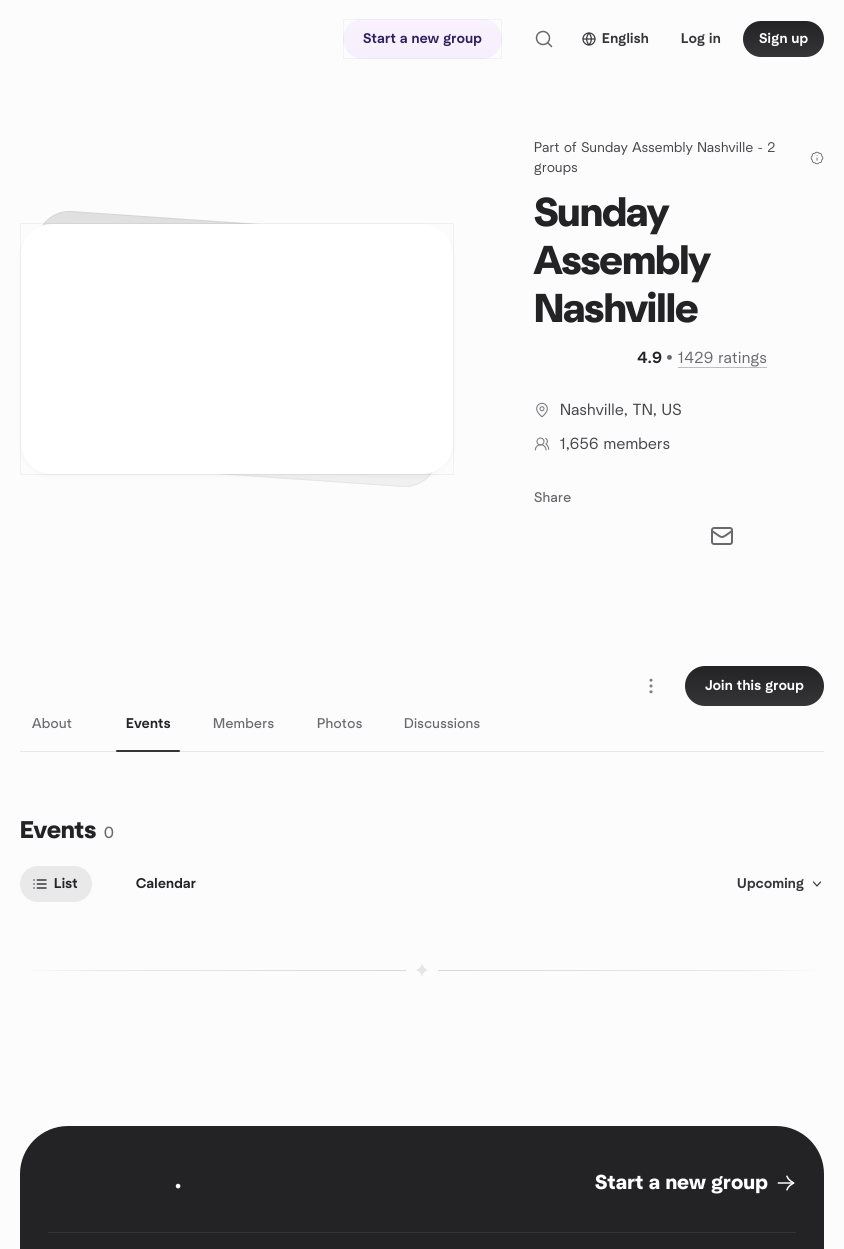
#include <cairo/cairo.h>
#include <math.h>
#include <stddef.h>


static void draw_spaced(cairo_t *cr, double x, double y, const char *s, double letter, double word) {
  cairo_move_to(cr, x, y);
  while (*s) {
    char ch[5] = {0};
    int n = 0;
    do ch[n++] = *s++; while ((*s & 0xC0) == 0x80);
    cairo_show_text(cr, ch);
    cairo_rel_move_to(cr, letter + word * (*ch == ' '), 0);
  }
}

static void rounded_rect(cairo_t *cr, double x, double y, double w, double h, double r) {
  cairo_new_sub_path(cr);
  cairo_arc(cr, x + w - r, y + h - r, r, 0, M_PI / 2);
  cairo_arc(cr, x + r, y + h - r, r, M_PI / 2, M_PI);
  cairo_arc(cr, x + r, y + r, r, M_PI, 1.5 * M_PI);
  cairo_arc(cr, x + w - r, y + r, r, 1.5 * M_PI, 2 * M_PI);
  cairo_close_path(cr);
}

static void draw_shadow(cairo_t *cr, double x, double y, double w, double h, double r, double blur, double alpha) {
  cairo_push_group_with_content(cr, CAIRO_CONTENT_ALPHA);
  cairo_set_operator(cr, CAIRO_OPERATOR_SOURCE);
  for (int i = 15; i >= -15 && fmin(w, h) + blur * i / 3 > 0; i -= 2) {
    double e = blur * i / 6;
    cairo_set_source_rgba(cr, 0, 0, 0, alpha * erfc((i - 1) / 8.5) / 2);
    rounded_rect(cr, x - e, y - e, w + 2 * e, h + 2 * e, fmax(0, fmin(r + e + blur * .6, fmin(w, h) / 2 + e)));
    cairo_fill(cr);
  }
  cairo_pattern_t *soft = cairo_pop_group(cr);
  cairo_mask(cr, soft);
  cairo_pattern_destroy(soft);
}

static void draw_image(cairo_t *cr, const char *path, double x, double y, double w, double h) {
  cairo_surface_t *image = cairo_image_surface_create_from_png(path);
  cairo_save(cr);
  cairo_set_source_surface(cr, image, x, y);
  cairo_rectangle(cr, x, y, w, h);
  cairo_fill(cr);
  cairo_restore(cr);
  cairo_surface_destroy(image);
}

static void draw(cairo_t *cr) {
  cairo_pattern_t *gradient;
  cairo_set_source_rgb(cr, 252 / 255.0, 252 / 255.0, 253 / 255.0);
  cairo_paint(cr);
  gradient = cairo_pattern_create_linear(423, 19, 423, 59);
  cairo_pattern_add_color_stop_rgba(gradient, 0, 249 / 255.0, 242 / 255.0, 254 / 255.0, 1);
  cairo_pattern_add_color_stop_rgba(gradient, 1, 246 / 255.0, 240 / 255.0, 252 / 255.0, 1);
  cairo_set_source(cr, gradient);
  cairo_pattern_destroy(gradient);
  rounded_rect(cr, 343, 19, 159, 40, 20);
  cairo_fill(cr);
  cairo_rectangle(cr, 343.5, 19.5, 158, 39);
  cairo_set_source_rgba(cr, 56 / 255.0, 20 / 255.0, 89 / 255.0, 0.05);
  cairo_set_line_width(cr, 1);
  cairo_stroke(cr);
  cairo_new_path(cr);
  cairo_move_to(cr, 551.5, 46.5);
  cairo_line_to(cr, 548, 43);
  cairo_set_source_rgb(cr, 105 / 255.0, 105 / 255.0, 108 / 255.0);
  cairo_set_line_width(cr, 1.5);
  cairo_set_line_cap(cr, CAIRO_LINE_CAP_ROUND);
  cairo_set_line_join(cr, CAIRO_LINE_JOIN_ROUND);
  cairo_stroke(cr);
  cairo_arc(cr, 543, 38, 6.5, 0, 2 * M_PI);
  cairo_set_line_cap(cr, CAIRO_LINE_CAP_BUTT);
  cairo_set_line_join(cr, CAIRO_LINE_JOIN_MITER);
  cairo_stroke(cr);
  draw_image(cr, "images/1.png", 582, 32, 14, 14);
  gradient = cairo_pattern_create_linear(784, 21, 784, 57);
  cairo_pattern_add_color_stop_rgba(gradient, 0, 35 / 255.0, 35 / 255.0, 38 / 255.0, 1);
  cairo_pattern_add_color_stop_rgba(gradient, 1, 53 / 255.0, 53 / 255.0, 56 / 255.0, 1);
  cairo_set_source(cr, gradient);
  cairo_pattern_destroy(gradient);
  rounded_rect(cr, 743, 21, 81, 36, 18);
  cairo_fill(cr);
  gradient = cairo_pattern_create_linear(246, 223, 228, 475);
  cairo_pattern_add_color_stop_rgba(gradient, 0, 224 / 255.0, 224 / 255.0, 225 / 255.0, 1);
  cairo_pattern_add_color_stop_rgba(gradient, 1, 240 / 255.0, 240 / 255.0, 241 / 255.0, 1);
  cairo_set_source(cr, gradient);
  cairo_pattern_destroy(gradient);
  cairo_new_path(cr);
  cairo_move_to(cr, 71, 211);
  cairo_line_to(cr, 421, 235);
  cairo_curve_to(cr, 438, 237, 452, 252, 450, 270);
  cairo_line_to(cr, 437, 457);
  cairo_curve_to(cr, 436, 475, 421, 488, 403, 487);
  cairo_line_to(cr, 54, 463);
  cairo_curve_to(cr, 36, 461, 23, 446, 24, 428);
  cairo_line_to(cr, 37, 241);
  cairo_curve_to(cr, 38, 223, 54, 210, 71, 211);
  cairo_close_path(cr);
  cairo_fill(cr);
  cairo_new_path(cr);
  cairo_move_to(cr, 71, 211.5);
  cairo_line_to(cr, 420.5, 236);
  cairo_curve_to(cr, 438, 237, 451, 252, 450, 269.5);
  cairo_line_to(cr, 437, 457.5);
  cairo_curve_to(cr, 435.5, 474.5, 420.5, 487.5, 403, 486.5);
  cairo_line_to(cr, 53.5, 462);
  cairo_curve_to(cr, 36.5, 461, 23, 446, 24.5, 428.5);
  cairo_line_to(cr, 37.5, 240.5);
  cairo_curve_to(cr, 39, 223.5, 54, 210.5, 71, 211.5);
  cairo_close_path(cr);
  cairo_set_source_rgba(cr, 0, 0, 0, 0.05);
  cairo_set_line_width(cr, 1);
  cairo_stroke(cr);
  cairo_set_source_rgb(cr, 0, 0, 16 / 255.0);
  draw_shadow(cr, 22, 227, 430, 248, 30, 3, 0.05);
  cairo_set_source_rgb(cr, 1, 1, 1);
  rounded_rect(cr, 21, 224, 432, 250, 31);
  cairo_fill(cr);
  cairo_rectangle(cr, 20.5, 223.5, 433, 251);
  cairo_set_source_rgba(cr, 18 / 255.0, 18 / 255.0, 21 / 255.0, 0.05);
  cairo_stroke(cr);
  draw_image(cr, "images/2.png", 810, 151, 14, 14);
  cairo_set_source_rgb(cr, 190 / 255.0, 190 / 255.0, 194 / 255.0);
  cairo_rectangle(cr, 678, 367, 89, 1);
  cairo_fill(cr);
  draw_image(cr, "images/3.png", 536, 402, 12, 16);
  draw_image(cr, "images/4.png", 534, 437, 16, 14);
  cairo_new_path(cr);
  cairo_move_to(cr, 732, 531);
  cairo_curve_to(cr, 720, 539, 724, 539, 712, 531);
  cairo_set_source_rgb(cr, 105 / 255.0, 105 / 255.0, 108 / 255.0);
  cairo_set_line_width(cr, 2);
  cairo_set_line_cap(cr, CAIRO_LINE_CAP_ROUND);
  cairo_set_line_join(cr, CAIRO_LINE_JOIN_ROUND);
  cairo_stroke(cr);
  rounded_rect(cr, 712, 528, 20, 16, 2);
  cairo_set_line_cap(cr, CAIRO_LINE_CAP_BUTT);
  cairo_set_line_join(cr, CAIRO_LINE_JOIN_MITER);
  cairo_stroke(cr);
  cairo_arc(cr, 651, 686, 0.8, 0, 2 * M_PI);
  cairo_set_source_rgb(cr, 125 / 255.0, 125 / 255.0, 130 / 255.0);
  cairo_set_line_width(cr, 1.5);
  cairo_stroke(cr);
  cairo_arc(cr, 651, 680.2, 0.8, 0, 2 * M_PI);
  cairo_stroke(cr);
  cairo_arc(cr, 651, 691.8, 0.8, 0, 2 * M_PI);
  cairo_stroke(cr);
  gradient = cairo_pattern_create_linear(755, 666, 755, 706);
  cairo_pattern_add_color_stop_rgba(gradient, 0, 35 / 255.0, 35 / 255.0, 38 / 255.0, 1);
  cairo_pattern_add_color_stop_rgba(gradient, 1, 53 / 255.0, 53 / 255.0, 56 / 255.0, 1);
  cairo_set_source(cr, gradient);
  cairo_pattern_destroy(gradient);
  rounded_rect(cr, 685, 666, 139, 40, 20);
  cairo_fill(cr);
  cairo_set_source_rgb(cr, 231 / 255.0, 231 / 255.0, 234 / 255.0);
  cairo_rectangle(cr, 20, 751, 804, 1);
  cairo_fill(cr);
  cairo_set_source_rgb(cr, 53 / 255.0, 53 / 255.0, 56 / 255.0);
  rounded_rect(cr, 116, 750, 64, 2, 1);
  cairo_fill(cr);
  cairo_set_source_rgb(cr, 233 / 255.0, 233 / 255.0, 234 / 255.0);
  rounded_rect(cr, 20, 866, 72, 36, 18);
  cairo_fill(cr);
  draw_image(cr, "images/5.png", 33, 879, 14, 10);
  cairo_new_path(cr);
  cairo_move_to(cr, 813.5, 882);
  cairo_line_to(cr, 817, 886);
  cairo_line_to(cr, 820.5, 882);
  cairo_set_source_rgb(cr, 53 / 255.0, 53 / 255.0, 56 / 255.0);
  cairo_set_line_width(cr, 1.2);
  cairo_set_line_cap(cr, CAIRO_LINE_CAP_ROUND);
  cairo_set_line_join(cr, CAIRO_LINE_JOIN_ROUND);
  cairo_stroke(cr);
  gradient = cairo_pattern_create_linear(20, 971, 406, 971);
  cairo_pattern_add_color_stop_rgba(gradient, 0, 252 / 255.0, 252 / 255.0, 253 / 255.0, 1);
  cairo_pattern_add_color_stop_rgba(gradient, 0.2, 233 / 255.0, 233 / 255.0, 234 / 255.0, 1);
  cairo_pattern_add_color_stop_rgba(gradient, 1, 217 / 255.0, 217 / 255.0, 218 / 255.0, 1);
  cairo_set_source(cr, gradient);
  cairo_pattern_destroy(gradient);
  cairo_rectangle(cr, 30, 970, 376, 1);
  cairo_fill(cr);
  draw_image(cr, "images/6.png", 416, 964, 12, 12);
  gradient = cairo_pattern_create_linear(438, 971, 824, 971);
  cairo_pattern_add_color_stop_rgba(gradient, 0, 217 / 255.0, 217 / 255.0, 218 / 255.0, 1);
  cairo_pattern_add_color_stop_rgba(gradient, 0.8, 233 / 255.0, 233 / 255.0, 234 / 255.0, 1);
  cairo_pattern_add_color_stop_rgba(gradient, 1, 252 / 255.0, 252 / 255.0, 253 / 255.0, 1);
  cairo_set_source(cr, gradient);
  cairo_pattern_destroy(gradient);
  cairo_rectangle(cr, 438, 970, 376, 1);
  cairo_fill(cr);
  cairo_set_source_rgb(cr, 35 / 255.0, 35 / 255.0, 38 / 255.0);
  rounded_rect(cr, 20, 1126, 804, 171, 48);
  cairo_fill(cr);
  cairo_set_source_rgb(cr, 53 / 255.0, 53 / 255.0, 56 / 255.0);
  cairo_rectangle(cr, 48, 1232, 748, 1);
  cairo_fill(cr);
  draw_image(cr, "images/7.png", 777, 1175, 18, 16);
  cairo_select_font_face(cr, "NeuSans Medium", CAIRO_FONT_SLANT_NORMAL, CAIRO_FONT_WEIGHT_NORMAL);
  cairo_set_font_size(cr, 14);
  cairo_set_source_rgb(cr, 45 / 255.0, 33 / 255.0, 94 / 255.0);
  draw_spaced(cr, 363, 43, "Start a new group", 0.3, 0);
  cairo_set_source_rgb(cr, 53 / 255.0, 53 / 255.0, 56 / 255.0);
  draw_spaced(cr, 602, 43, "English", 0.3, 0);
  draw_spaced(cr, 681, 43, "Log in", 0.3, 0);
  cairo_set_source_rgb(cr, 1, 1, 1);
  draw_spaced(cr, 759, 43, "Sign up", 0.3, 0);
  cairo_select_font_face(cr, "NeuSans", CAIRO_FONT_SLANT_NORMAL, CAIRO_FONT_WEIGHT_NORMAL);
  cairo_set_source_rgb(cr, 70 / 255.0, 70 / 255.0, 73 / 255.0);
  draw_spaced(cr, 534, 152, "Part of Sunday Assembly Nashville - 2", 0.3, 0);
  draw_spaced(cr, 534, 172, "groups", 0.3, 0);
  cairo_select_font_face(cr, "NeuSans", CAIRO_FONT_SLANT_NORMAL, CAIRO_FONT_WEIGHT_BOLD);
  cairo_set_font_size(cr, 40);
  cairo_set_source_rgb(cr, 35 / 255.0, 35 / 255.0, 38 / 255.0);
  draw_spaced(cr, 534, 226, "Sunday", -0.75, 0);
  draw_spaced(cr, 534, 274, "Assembly", -0.75, 0);
  draw_spaced(cr, 534, 322, "Nashville", -0.75, 0);
  cairo_select_font_face(cr, "NeuSans Medium", CAIRO_FONT_SLANT_NORMAL, CAIRO_FONT_WEIGHT_NORMAL);
  cairo_set_font_size(cr, 16);
  draw_spaced(cr, 637, 363, "4.9", 0.3, 0);
  cairo_select_font_face(cr, "NeuSans", CAIRO_FONT_SLANT_NORMAL, CAIRO_FONT_WEIGHT_NORMAL);
  cairo_set_source_rgb(cr, 105 / 255.0, 105 / 255.0, 108 / 255.0);
  draw_spaced(cr, 666, 363, "•", 0.3, 0);
  draw_spaced(cr, 678, 363, "1429 ratings", 0.3, 0);
  cairo_set_source_rgb(cr, 70 / 255.0, 70 / 255.0, 73 / 255.0);
  draw_spaced(cr, 560, 415, "Nashville, TN, US", 0.3, 0);
  draw_spaced(cr, 560, 449, "1,656 members", 0.3, 0);
  cairo_select_font_face(cr, "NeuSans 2", CAIRO_FONT_SLANT_NORMAL, CAIRO_FONT_WEIGHT_NORMAL);
  cairo_set_font_size(cr, 14);
  cairo_set_source_rgb(cr, 105 / 255.0, 105 / 255.0, 108 / 255.0);
  draw_spaced(cr, 534, 502, "Share", 0.3, 0);
  cairo_select_font_face(cr, "NeuSans Medium", CAIRO_FONT_SLANT_NORMAL, CAIRO_FONT_WEIGHT_NORMAL);
  cairo_set_source_rgb(cr, 1, 1, 1);
  draw_spaced(cr, 705, 690, "Join this group", 0.3, 0);
  cairo_select_font_face(cr, "NeuSans 2", CAIRO_FONT_SLANT_NORMAL, CAIRO_FONT_WEIGHT_NORMAL);
  cairo_set_source_rgb(cr, 105 / 255.0, 105 / 255.0, 108 / 255.0);
  draw_spaced(cr, 32, 728, "About", 0.3, 0);
  cairo_select_font_face(cr, "NeuSans Medium", CAIRO_FONT_SLANT_NORMAL, CAIRO_FONT_WEIGHT_NORMAL);
  cairo_set_source_rgb(cr, 35 / 255.0, 35 / 255.0, 38 / 255.0);
  draw_spaced(cr, 126, 728, "Events", 0.3, 0);
  cairo_select_font_face(cr, "NeuSans 2", CAIRO_FONT_SLANT_NORMAL, CAIRO_FONT_WEIGHT_NORMAL);
  cairo_set_source_rgb(cr, 105 / 255.0, 105 / 255.0, 108 / 255.0);
  draw_spaced(cr, 213, 728, "Members", 0.3, 0);
  draw_spaced(cr, 317, 728, "Photos", 0.3, 0);
  draw_spaced(cr, 404, 728, "Discussions", 0.3, 0);
  cairo_select_font_face(cr, "NeuSans", CAIRO_FONT_SLANT_NORMAL, CAIRO_FONT_WEIGHT_BOLD);
  cairo_set_font_size(cr, 24);
  cairo_set_source_rgb(cr, 35 / 255.0, 35 / 255.0, 38 / 255.0);
  cairo_move_to(cr, 20, 838);
  cairo_show_text(cr, "Events");
  cairo_select_font_face(cr, "NeuSans 2", CAIRO_FONT_SLANT_NORMAL, CAIRO_FONT_WEIGHT_NORMAL);
  cairo_set_font_size(cr, 16);
  cairo_set_source_rgb(cr, 105 / 255.0, 105 / 255.0, 108 / 255.0);
  draw_spaced(cr, 104, 838, "0", 0.3, 0);
  cairo_select_font_face(cr, "NeuSans Medium", CAIRO_FONT_SLANT_NORMAL, CAIRO_FONT_WEIGHT_NORMAL);
  cairo_set_font_size(cr, 14);
  cairo_set_source_rgb(cr, 35 / 255.0, 35 / 255.0, 38 / 255.0);
  draw_spaced(cr, 54, 888, "List", 0.3, 0);
  draw_spaced(cr, 136, 888, "Calendar", 0.3, 0);
  cairo_set_source_rgb(cr, 53 / 255.0, 53 / 255.0, 56 / 255.0);
  draw_spaced(cr, 737, 888, "Upcoming", 0.3, 0);
  cairo_select_font_face(cr, "NeuSans", CAIRO_FONT_SLANT_NORMAL, CAIRO_FONT_WEIGHT_BOLD);
  cairo_set_font_size(cr, 24);
  cairo_set_source_rgb(cr, 1, 1, 1);
  cairo_move_to(cr, 175, 1188);
  cairo_show_text(cr, ".");
  cairo_set_font_size(cr, 20);
  draw_spaced(cr, 595, 1189, "Start a new group", 0.4, 0);
}

int main(void) {
  cairo_surface_t *surface = cairo_image_surface_create(CAIRO_FORMAT_RGB24, 844, 1249);
  cairo_t *cr = cairo_create(surface);
  cairo_font_options_t *options = cairo_font_options_create();
  cairo_font_options_set_hint_metrics(options, CAIRO_HINT_METRICS_OFF);
  cairo_font_options_set_hint_style(options, CAIRO_HINT_STYLE_NONE);
  cairo_set_font_options(cr, options);
  cairo_set_miter_limit(cr, 4);
  draw(cr);
  cairo_surface_write_to_png(surface, "out.png");
  cairo_font_options_destroy(options);
  cairo_destroy(cr);
  cairo_surface_destroy(surface);
  return 0;
}
